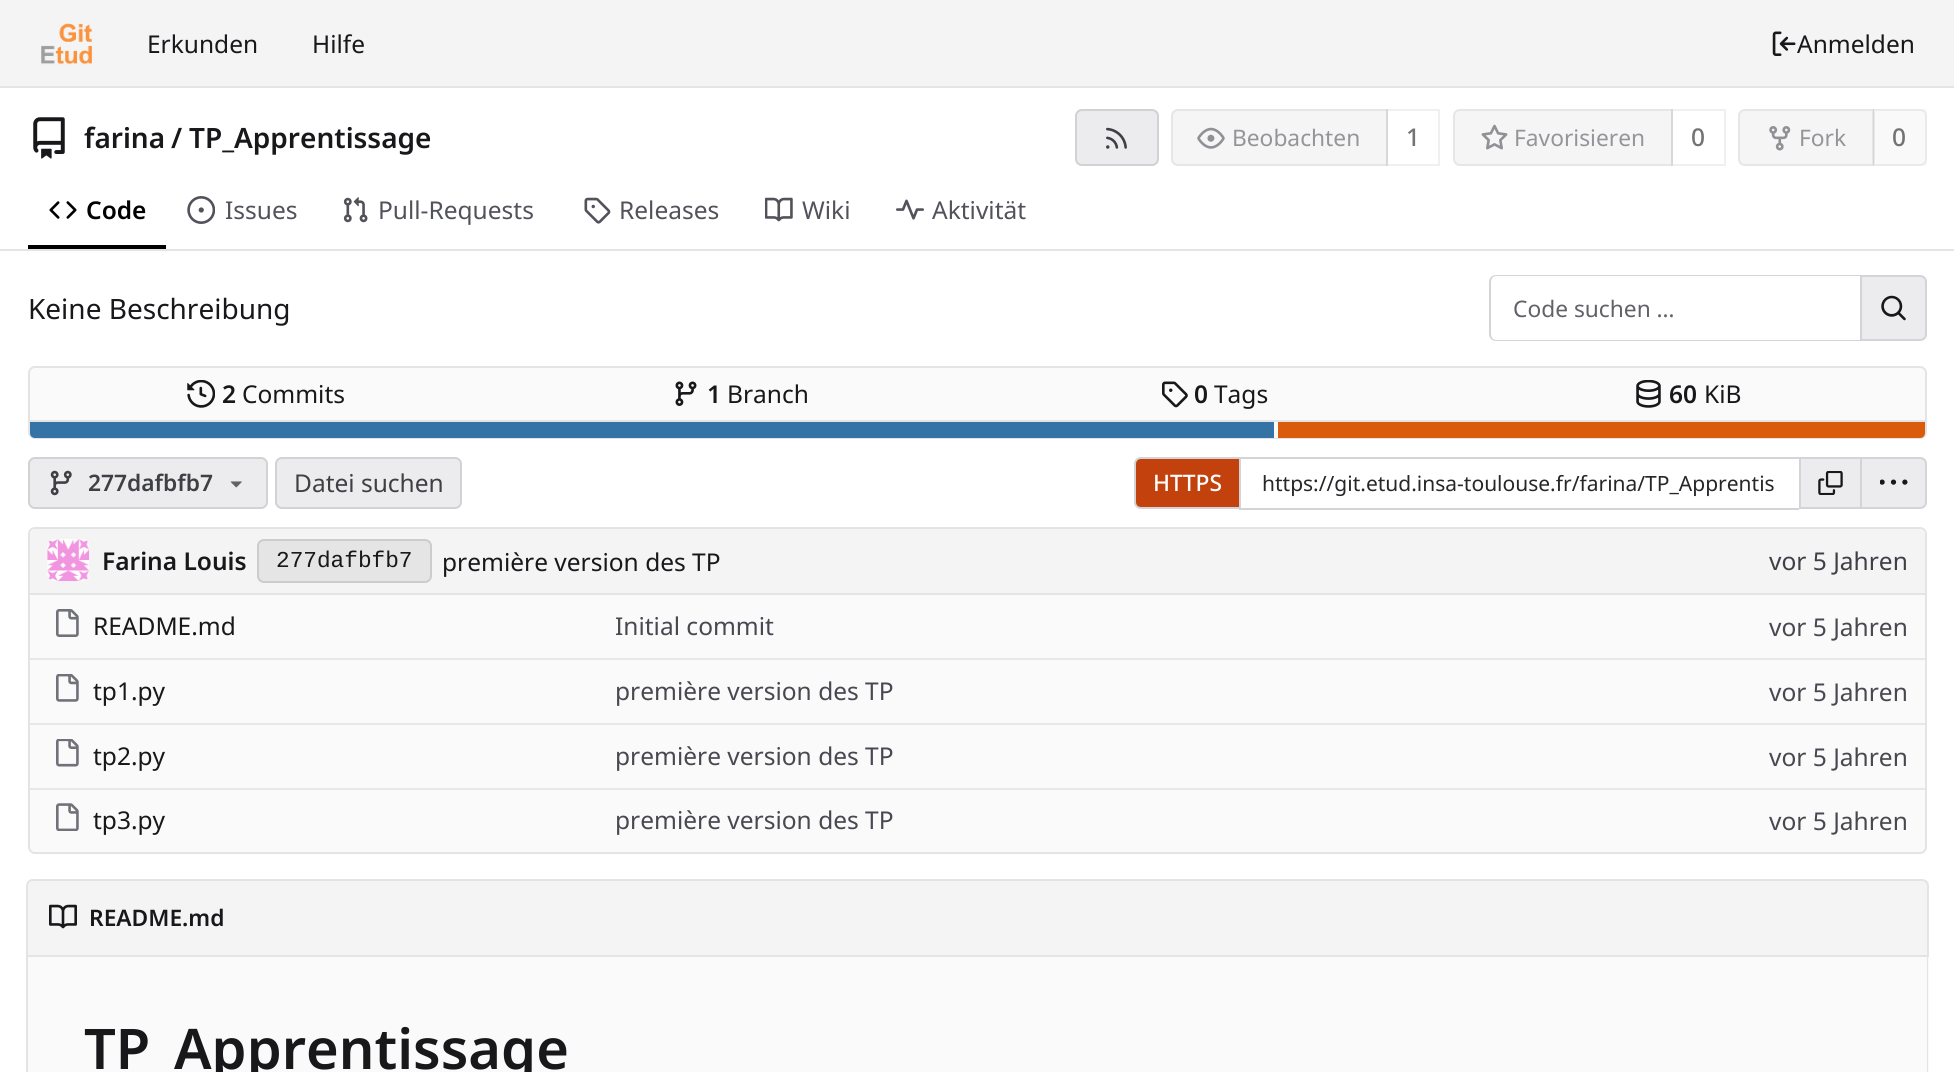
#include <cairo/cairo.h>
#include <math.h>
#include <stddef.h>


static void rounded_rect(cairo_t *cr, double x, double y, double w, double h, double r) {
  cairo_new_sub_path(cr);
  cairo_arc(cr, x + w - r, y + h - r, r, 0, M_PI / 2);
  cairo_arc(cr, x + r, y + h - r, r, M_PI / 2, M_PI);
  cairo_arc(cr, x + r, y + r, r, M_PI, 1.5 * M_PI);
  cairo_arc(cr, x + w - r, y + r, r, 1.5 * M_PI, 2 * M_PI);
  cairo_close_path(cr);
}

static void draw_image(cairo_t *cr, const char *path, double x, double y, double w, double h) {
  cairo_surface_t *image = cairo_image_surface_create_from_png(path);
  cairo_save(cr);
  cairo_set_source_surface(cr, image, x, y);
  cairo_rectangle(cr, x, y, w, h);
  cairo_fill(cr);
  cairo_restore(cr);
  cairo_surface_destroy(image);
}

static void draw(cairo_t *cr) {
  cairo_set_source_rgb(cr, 1, 1, 1);
  cairo_paint(cr);
  cairo_set_source_rgb(cr, 244 / 255.0, 244 / 255.0, 245 / 255.0);
  cairo_rectangle(cr, 0, 0, 1954, 86);
  cairo_fill(cr);
  cairo_set_source_rgb(cr, 228 / 255.0, 228 / 255.0, 231 / 255.0);
  cairo_rectangle(cr, 0, 86, 1954, 2);
  cairo_fill(cr);
  draw_image(cr, "images/1.png", 41, 23, 51, 42);
  draw_image(cr, "images/2.png", 1772, 31, 24, 25);
  draw_image(cr, "images/3.png", 33, 117, 32, 42);
  cairo_set_source_rgb(cr, 236 / 255.0, 236 / 255.0, 238 / 255.0);
  rounded_rect(cr, 1075, 109, 84, 57, 7);
  cairo_fill(cr);
  rounded_rect(cr, 1076, 110, 82, 55, 6);
  cairo_set_source_rgba(cr, 0, 0, 0, 0.11);
  cairo_stroke(cr);
  draw_image(cr, "images/4.png", 1106, 127, 21, 22);
  cairo_set_source_rgb(cr, 245 / 255.0, 245 / 255.0, 246 / 255.0);
  cairo_new_path(cr);
  cairo_move_to(cr, 1178, 109);
  cairo_line_to(cr, 1388, 109);
  cairo_line_to(cr, 1388, 166);
  cairo_line_to(cr, 1178, 166);
  cairo_curve_to(cr, 1174, 166, 1171, 163, 1171, 159);
  cairo_line_to(cr, 1171, 116);
  cairo_curve_to(cr, 1171, 112, 1174, 109, 1178, 109);
  cairo_close_path(cr);
  cairo_fill(cr);
  cairo_new_path(cr);
  cairo_move_to(cr, 1178, 110);
  cairo_line_to(cr, 1387, 110);
  cairo_line_to(cr, 1387, 165);
  cairo_line_to(cr, 1178, 165);
  cairo_curve_to(cr, 1174.5, 165, 1172, 162.5, 1172, 159);
  cairo_line_to(cr, 1172, 116);
  cairo_curve_to(cr, 1172, 112.5, 1174.5, 110, 1178, 110);
  cairo_close_path(cr);
  cairo_set_source_rgba(cr, 115 / 255.0, 115 / 255.0, 115 / 255.0, 0.11);
  cairo_stroke(cr);
  draw_image(cr, "images/5.png", 1197, 127, 28, 22);
  cairo_rectangle(cr, 1387, 110, 52, 55);
  cairo_set_source_rgba(cr, 0, 0, 0, 0.06);
  cairo_stroke(cr);
  cairo_set_source_rgb(cr, 245 / 255.0, 245 / 255.0, 246 / 255.0);
  cairo_new_path(cr);
  cairo_move_to(cr, 1460, 109);
  cairo_line_to(cr, 1673, 109);
  cairo_line_to(cr, 1673, 166);
  cairo_line_to(cr, 1460, 166);
  cairo_curve_to(cr, 1456, 166, 1453, 163, 1453, 159);
  cairo_line_to(cr, 1453, 116);
  cairo_curve_to(cr, 1453, 112, 1456, 109, 1460, 109);
  cairo_close_path(cr);
  cairo_fill(cr);
  cairo_new_path(cr);
  cairo_move_to(cr, 1460, 110);
  cairo_line_to(cr, 1672, 110);
  cairo_line_to(cr, 1672, 165);
  cairo_line_to(cr, 1460, 165);
  cairo_curve_to(cr, 1456.5, 165, 1454, 162.5, 1454, 159);
  cairo_line_to(cr, 1454, 116);
  cairo_curve_to(cr, 1454, 112.5, 1456.5, 110, 1460, 110);
  cairo_close_path(cr);
  cairo_set_source_rgba(cr, 115 / 255.0, 115 / 255.0, 115 / 255.0, 0.11);
  cairo_stroke(cr);
  draw_image(cr, "images/6.png", 1481, 124, 27, 26);
  cairo_rectangle(cr, 1672, 110, 53, 55);
  cairo_set_source_rgba(cr, 0, 0, 0, 0.06);
  cairo_stroke(cr);
  cairo_set_source_rgb(cr, 245 / 255.0, 245 / 255.0, 246 / 255.0);
  cairo_new_path(cr);
  cairo_move_to(cr, 1745, 109);
  cairo_line_to(cr, 1874, 109);
  cairo_line_to(cr, 1874, 166);
  cairo_line_to(cr, 1745, 166);
  cairo_curve_to(cr, 1741, 166, 1738, 163, 1738, 159);
  cairo_line_to(cr, 1738, 116);
  cairo_curve_to(cr, 1738, 112, 1741, 109, 1745, 109);
  cairo_close_path(cr);
  cairo_fill(cr);
  cairo_new_path(cr);
  cairo_move_to(cr, 1745, 110);
  cairo_line_to(cr, 1873, 110);
  cairo_line_to(cr, 1873, 165);
  cairo_line_to(cr, 1745, 165);
  cairo_curve_to(cr, 1741.5, 165, 1739, 162.5, 1739, 159);
  cairo_line_to(cr, 1739, 116);
  cairo_curve_to(cr, 1739, 112.5, 1741.5, 110, 1745, 110);
  cairo_close_path(cr);
  cairo_set_source_rgba(cr, 115 / 255.0, 115 / 255.0, 115 / 255.0, 0.11);
  cairo_stroke(cr);
  draw_image(cr, "images/7.png", 1769, 126, 22, 25);
  cairo_set_source_rgba(cr, 115 / 255.0, 115 / 255.0, 115 / 255.0, 0.04);
  cairo_rectangle(cr, 1873, 109, 54, 57);
  cairo_fill(cr);
  cairo_new_path(cr);
  cairo_move_to(cr, 1874, 110);
  cairo_line_to(cr, 1920, 110);
  cairo_curve_to(cr, 1923.5, 110, 1926, 112.5, 1926, 116);
  cairo_line_to(cr, 1926, 159);
  cairo_curve_to(cr, 1926, 162.5, 1923.5, 165, 1920, 165);
  cairo_line_to(cr, 1874, 165);
  cairo_close_path(cr);
  cairo_set_source_rgba(cr, 115 / 255.0, 115 / 255.0, 115 / 255.0, 0.11);
  cairo_stroke(cr);
  cairo_set_source_rgb(cr, 0, 0, 0);
  cairo_rectangle(cr, 28, 245, 138, 4);
  cairo_fill(cr);
  draw_image(cr, "images/8.png", 49, 201, 28, 18);
  draw_image(cr, "images/9.png", 187, 196, 28, 28);
  draw_image(cr, "images/10.png", 343, 197, 25, 26);
  draw_image(cr, "images/11.png", 584, 197, 27, 27);
  draw_image(cr, "images/12.png", 765, 197, 28, 25);
  draw_image(cr, "images/13.png", 896, 199, 28, 21);
  cairo_set_source_rgb(cr, 228 / 255.0, 228 / 255.0, 231 / 255.0);
  cairo_rectangle(cr, 0, 249, 1954, 2);
  cairo_fill(cr);
  cairo_set_source_rgb(cr, 212 / 255.0, 212 / 255.0, 216 / 255.0);
  cairo_set_fill_rule(cr, CAIRO_FILL_RULE_EVEN_ODD);
  cairo_new_path(cr);
  cairo_move_to(cr, 1496, 275);
  cairo_line_to(cr, 1860, 275);
  cairo_line_to(cr, 1860, 341);
  cairo_line_to(cr, 1496, 341);
  cairo_curve_to(cr, 1492, 341, 1489, 338, 1489, 334);
  cairo_line_to(cr, 1489, 282);
  cairo_curve_to(cr, 1489, 278, 1492, 275, 1496, 275);
  cairo_close_path(cr);
  cairo_move_to(cr, 1496, 276);
  cairo_line_to(cr, 1860, 276);
  cairo_line_to(cr, 1860, 340);
  cairo_line_to(cr, 1496, 340);
  cairo_curve_to(cr, 1493, 340, 1491, 337, 1491, 334);
  cairo_line_to(cr, 1491, 282);
  cairo_curve_to(cr, 1491, 279, 1493, 276, 1496, 276);
  cairo_close_path(cr);
  cairo_fill(cr);
  cairo_set_source_rgb(cr, 236 / 255.0, 236 / 255.0, 238 / 255.0);
  cairo_new_path(cr);
  cairo_move_to(cr, 1861, 276);
  cairo_line_to(cr, 1920, 276);
  cairo_curve_to(cr, 1923.5, 276, 1926, 278.5, 1926, 282);
  cairo_line_to(cr, 1926, 334);
  cairo_curve_to(cr, 1926, 337.5, 1923.5, 340, 1920, 340);
  cairo_line_to(cr, 1861, 340);
  cairo_close_path(cr);
  cairo_fill_preserve(cr);
  cairo_set_source_rgb(cr, 212 / 255.0, 212 / 255.0, 216 / 255.0);
  cairo_stroke(cr);
  draw_image(cr, "images/14.png", 1881, 295, 25, 26);
  cairo_set_source_rgb(cr, 250 / 255.0, 250 / 255.0, 250 / 255.0);
  rounded_rect(cr, 29, 367, 1897, 71, 6);
  cairo_fill_preserve(cr);
  cairo_set_source_rgb(cr, 228 / 255.0, 228 / 255.0, 231 / 255.0);
  cairo_stroke(cr);
  draw_image(cr, "images/15.png", 187, 380, 28, 28);
  draw_image(cr, "images/16.png", 675, 381, 22, 25);
  draw_image(cr, "images/17.png", 1162, 381, 26, 27);
  draw_image(cr, "images/18.png", 1636, 380, 25, 28);
  cairo_set_source_rgb(cr, 250 / 255.0, 250 / 255.0, 250 / 255.0);
  cairo_new_path(cr);
  cairo_move_to(cr, 30, 420);
  cairo_line_to(cr, 1925, 420);
  cairo_line_to(cr, 1925, 433);
  cairo_curve_to(cr, 1925, 436, 1923, 438, 1920, 438);
  cairo_line_to(cr, 35, 438);
  cairo_curve_to(cr, 32, 438, 30, 436, 30, 433);
  cairo_close_path(cr);
  cairo_fill(cr);
  cairo_set_source_rgb(cr, 228 / 255.0, 228 / 255.0, 231 / 255.0);
  cairo_rectangle(cr, 30, 420, 1895, 2);
  cairo_fill(cr);
  cairo_set_source_rgb(cr, 53 / 255.0, 114 / 255.0, 165 / 255.0);
  cairo_new_path(cr);
  cairo_move_to(cr, 30, 422);
  cairo_line_to(cr, 1274, 422);
  cairo_line_to(cr, 1274, 438);
  cairo_line_to(cr, 35, 438);
  cairo_curve_to(cr, 32, 438, 30, 436, 30, 433);
  cairo_close_path(cr);
  cairo_fill(cr);
  cairo_set_source_rgb(cr, 218 / 255.0, 91 / 255.0, 11 / 255.0);
  cairo_new_path(cr);
  cairo_move_to(cr, 1278, 422);
  cairo_line_to(cr, 1925, 422);
  cairo_line_to(cr, 1925, 433);
  cairo_curve_to(cr, 1925, 436, 1923, 438, 1920, 438);
  cairo_line_to(cr, 1278, 438);
  cairo_close_path(cr);
  cairo_fill(cr);
  cairo_set_source_rgb(cr, 236 / 255.0, 236 / 255.0, 238 / 255.0);
  rounded_rect(cr, 28, 457, 240, 52, 7);
  cairo_fill(cr);
  rounded_rect(cr, 29, 458, 238, 50, 6);
  cairo_set_source_rgba(cr, 0, 0, 0, 0.11);
  cairo_stroke(cr);
  draw_image(cr, "images/19.png", 50, 470, 22, 26);
  draw_image(cr, "images/20.png", 230, 481, 12, 7);
  cairo_set_source_rgb(cr, 236 / 255.0, 236 / 255.0, 238 / 255.0);
  rounded_rect(cr, 275, 457, 187, 52, 7);
  cairo_fill(cr);
  rounded_rect(cr, 276, 458, 185, 50, 6);
  cairo_set_source_rgba(cr, 0, 0, 0, 0.11);
  cairo_stroke(cr);
  cairo_set_source_rgb(cr, 194 / 255.0, 65 / 255.0, 12 / 255.0);
  cairo_new_path(cr);
  cairo_move_to(cr, 1141, 458);
  cairo_line_to(cr, 1240, 458);
  cairo_line_to(cr, 1240, 508);
  cairo_line_to(cr, 1141, 508);
  cairo_curve_to(cr, 1137.5, 508, 1135, 505.5, 1135, 502);
  cairo_line_to(cr, 1135, 464);
  cairo_curve_to(cr, 1135, 460.5, 1137.5, 458, 1141, 458);
  cairo_close_path(cr);
  cairo_fill_preserve(cr);
  cairo_set_source_rgb(cr, 212 / 255.0, 212 / 255.0, 216 / 255.0);
  cairo_stroke(cr);
  cairo_rectangle(cr, 1239, 457, 560, 2);
  cairo_fill(cr);
  cairo_rectangle(cr, 1239, 508, 560, 2);
  cairo_fill(cr);
  cairo_set_source_rgb(cr, 236 / 255.0, 236 / 255.0, 238 / 255.0);
  cairo_rectangle(cr, 1800, 458, 61, 50);
  cairo_fill_preserve(cr);
  cairo_set_source_rgb(cr, 212 / 255.0, 212 / 255.0, 216 / 255.0);
  cairo_stroke(cr);
  draw_image(cr, "images/21.png", 1818, 471, 25, 24);
  cairo_set_source_rgb(cr, 236 / 255.0, 236 / 255.0, 238 / 255.0);
  cairo_new_path(cr);
  cairo_move_to(cr, 1861, 458);
  cairo_line_to(cr, 1920, 458);
  cairo_curve_to(cr, 1923.5, 458, 1926, 460.5, 1926, 464);
  cairo_line_to(cr, 1926, 502);
  cairo_curve_to(cr, 1926, 505.5, 1923.5, 508, 1920, 508);
  cairo_line_to(cr, 1861, 508);
  cairo_close_path(cr);
  cairo_fill_preserve(cr);
  cairo_set_source_rgb(cr, 212 / 255.0, 212 / 255.0, 216 / 255.0);
  cairo_stroke(cr);
  draw_image(cr, "images/22.png", 1880, 479, 28, 6);
  cairo_set_source_rgb(cr, 250 / 255.0, 250 / 255.0, 250 / 255.0);
  rounded_rect(cr, 29, 528, 1897, 325, 6);
  cairo_fill_preserve(cr);
  cairo_set_source_rgb(cr, 228 / 255.0, 228 / 255.0, 231 / 255.0);
  cairo_stroke(cr);
  cairo_set_source_rgb(cr, 244 / 255.0, 244 / 255.0, 245 / 255.0);
  cairo_new_path(cr);
  cairo_move_to(cr, 37, 529);
  cairo_line_to(cr, 1761, 529);
  cairo_line_to(cr, 1761, 595);
  cairo_line_to(cr, 30, 595);
  cairo_line_to(cr, 30, 536);
  cairo_curve_to(cr, 30, 532, 33, 529, 37, 529);
  cairo_close_path(cr);
  cairo_fill(cr);
  cairo_set_source_rgb(cr, 228 / 255.0, 228 / 255.0, 231 / 255.0);
  cairo_rectangle(cr, 30, 593, 1731, 2);
  cairo_fill(cr);
  draw_image(cr, "images/23.png", 47, 539, 43, 42);
  cairo_set_source_rgb(cr, 229 / 255.0, 229 / 255.0, 230 / 255.0);
  rounded_rect(cr, 257, 539, 175, 44, 7);
  cairo_fill(cr);
  rounded_rect(cr, 258, 540, 173, 42, 6);
  cairo_set_source_rgba(cr, 0, 0, 0, 0.11);
  cairo_stroke(cr);
  cairo_set_source_rgb(cr, 244 / 255.0, 244 / 255.0, 245 / 255.0);
  cairo_new_path(cr);
  cairo_move_to(cr, 1761, 529);
  cairo_line_to(cr, 1918, 529);
  cairo_curve_to(cr, 1922, 529, 1925, 532, 1925, 536);
  cairo_line_to(cr, 1925, 595);
  cairo_line_to(cr, 1761, 595);
  cairo_close_path(cr);
  cairo_fill(cr);
  cairo_set_source_rgb(cr, 228 / 255.0, 228 / 255.0, 231 / 255.0);
  cairo_rectangle(cr, 1761, 593, 164, 2);
  cairo_fill(cr);
  draw_image(cr, "images/24.png", 56, 609, 23, 28);
  cairo_set_source_rgb(cr, 231 / 255.0, 231 / 255.0, 233 / 255.0);
  cairo_rectangle(cr, 30, 658, 1895, 2);
  cairo_fill(cr);
  draw_image(cr, "images/25.png", 56, 674, 23, 28);
  cairo_rectangle(cr, 30, 723, 1895, 2);
  cairo_fill(cr);
  draw_image(cr, "images/26.png", 56, 739, 23, 28);
  cairo_rectangle(cr, 30, 788, 1895, 2);
  cairo_fill(cr);
  draw_image(cr, "images/27.png", 56, 803, 23, 28);
  cairo_set_source_rgb(cr, 244 / 255.0, 244 / 255.0, 245 / 255.0);
  cairo_new_path(cr);
  cairo_move_to(cr, 33, 880);
  cairo_line_to(cr, 1922, 880);
  cairo_curve_to(cr, 1925.5, 880, 1928, 882.5, 1928, 886);
  cairo_line_to(cr, 1928, 956);
  cairo_line_to(cr, 27, 956);
  cairo_line_to(cr, 27, 886);
  cairo_curve_to(cr, 27, 882.5, 29.5, 880, 33, 880);
  cairo_close_path(cr);
  cairo_fill_preserve(cr);
  cairo_set_source_rgb(cr, 228 / 255.0, 228 / 255.0, 231 / 255.0);
  cairo_stroke(cr);
  draw_image(cr, "images/28.png", 49, 904, 28, 25);
  cairo_set_source_rgb(cr, 250 / 255.0, 250 / 255.0, 250 / 255.0);
  cairo_rectangle(cr, 28, 957, 1901, 115);
  cairo_fill(cr);
  cairo_set_source_rgb(cr, 228 / 255.0, 228 / 255.0, 231 / 255.0);
  cairo_new_path(cr);
  cairo_move_to(cr, 26, 957);
  cairo_line_to(cr, 1928, 957);
  cairo_line_to(cr, 1928, 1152);
  cairo_curve_to(cr, 1928, 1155, 1925, 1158, 1922, 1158);
  cairo_line_to(cr, 33, 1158);
  cairo_curve_to(cr, 29, 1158, 26, 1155, 26, 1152);
  cairo_close_path(cr);
  cairo_move_to(cr, 28, 957);
  cairo_line_to(cr, 1927, 957);
  cairo_line_to(cr, 1927, 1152);
  cairo_curve_to(cr, 1927, 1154, 1924, 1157, 1922, 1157);
  cairo_line_to(cr, 33, 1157);
  cairo_curve_to(cr, 30, 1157, 28, 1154, 28, 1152);
  cairo_close_path(cr);
  cairo_fill(cr);
  cairo_select_font_face(cr, "Noto Sans", CAIRO_FONT_SLANT_NORMAL, CAIRO_FONT_WEIGHT_NORMAL);
  cairo_set_font_size(cr, 24.5);
  cairo_set_source_rgb(cr, 24 / 255.0, 24 / 255.0, 27 / 255.0);
  cairo_move_to(cr, 147, 53);
  cairo_show_text(cr, "Erkunden");
  cairo_move_to(cr, 312, 53);
  cairo_show_text(cr, "Hilfe");
  cairo_move_to(cr, 1797, 53);
  cairo_show_text(cr, "Anmelden");
  cairo_select_font_face(cr, "Noto Sans SemiBold", CAIRO_FONT_SLANT_NORMAL, CAIRO_FONT_WEIGHT_NORMAL);
  cairo_set_font_size(cr, 28);
  cairo_move_to(cr, 84, 148);
  cairo_show_text(cr, "farina");
  cairo_move_to(cr, 171, 148);
  cairo_show_text(cr, "/");
  cairo_move_to(cr, 189, 148);
  cairo_show_text(cr, "TP_Apprentissage");
  cairo_select_font_face(cr, "Noto Sans", CAIRO_FONT_SLANT_NORMAL, CAIRO_FONT_WEIGHT_NORMAL);
  cairo_set_font_size(cr, 22.75);
  cairo_set_source_rgb(cr, 149 / 255.0, 149 / 255.0, 153 / 255.0);
  cairo_move_to(cr, 1232, 146);
  cairo_show_text(cr, "Beobachten");
  cairo_select_font_face(cr, "Noto Sans Medium", CAIRO_FONT_SLANT_NORMAL, CAIRO_FONT_WEIGHT_NORMAL);
  cairo_set_font_size(cr, 24.5);
  cairo_set_source_rgb(cr, 115 / 255.0, 115 / 255.0, 115 / 255.0);
  cairo_move_to(cr, 1406, 146);
  cairo_show_text(cr, "1");
  cairo_select_font_face(cr, "Noto Sans", CAIRO_FONT_SLANT_NORMAL, CAIRO_FONT_WEIGHT_NORMAL);
  cairo_set_font_size(cr, 22.75);
  cairo_set_source_rgb(cr, 149 / 255.0, 149 / 255.0, 153 / 255.0);
  cairo_move_to(cr, 1514, 146);
  cairo_show_text(cr, "Favorisieren");
  cairo_select_font_face(cr, "Noto Sans Medium", CAIRO_FONT_SLANT_NORMAL, CAIRO_FONT_WEIGHT_NORMAL);
  cairo_set_font_size(cr, 24.5);
  cairo_set_source_rgb(cr, 115 / 255.0, 115 / 255.0, 115 / 255.0);
  cairo_move_to(cr, 1691, 146);
  cairo_show_text(cr, "0");
  cairo_select_font_face(cr, "Noto Sans", CAIRO_FONT_SLANT_NORMAL, CAIRO_FONT_WEIGHT_NORMAL);
  cairo_set_font_size(cr, 22.75);
  cairo_set_source_rgb(cr, 149 / 255.0, 149 / 255.0, 153 / 255.0);
  cairo_move_to(cr, 1799, 146);
  cairo_show_text(cr, "Fork");
  cairo_select_font_face(cr, "Noto Sans Medium", CAIRO_FONT_SLANT_NORMAL, CAIRO_FONT_WEIGHT_NORMAL);
  cairo_set_font_size(cr, 24.5);
  cairo_set_source_rgb(cr, 115 / 255.0, 115 / 255.0, 115 / 255.0);
  cairo_move_to(cr, 1892, 146);
  cairo_show_text(cr, "0");
  cairo_select_font_face(cr, "Noto Sans SemiBold", CAIRO_FONT_SLANT_NORMAL, CAIRO_FONT_WEIGHT_NORMAL);
  cairo_set_source_rgb(cr, 0, 0, 0);
  cairo_move_to(cr, 86, 219);
  cairo_show_text(cr, "Code");
  cairo_select_font_face(cr, "Noto Sans", CAIRO_FONT_SLANT_NORMAL, CAIRO_FONT_WEIGHT_NORMAL);
  cairo_set_source_rgb(cr, 82 / 255.0, 82 / 255.0, 91 / 255.0);
  cairo_move_to(cr, 225, 219);
  cairo_show_text(cr, "Issues");
  cairo_move_to(cr, 378, 219);
  cairo_show_text(cr, "Pull-Requests");
  cairo_move_to(cr, 619, 219);
  cairo_show_text(cr, "Releases");
  cairo_move_to(cr, 802, 219);
  cairo_show_text(cr, "Wiki");
  cairo_move_to(cr, 932, 219);
  cairo_show_text(cr, "Aktivität");
  cairo_set_font_size(cr, 28);
  cairo_set_source_rgb(cr, 24 / 255.0, 24 / 255.0, 27 / 255.0);
  cairo_move_to(cr, 28, 319);
  cairo_show_text(cr, "Keine Beschreibung");
  cairo_set_font_size(cr, 22.75);
  cairo_set_source_rgb(cr, 97 / 255.0, 97 / 255.0, 106 / 255.0);
  cairo_move_to(cr, 1513, 317);
  cairo_show_text(cr, "Code suchen …");
  cairo_select_font_face(cr, "Noto Sans SemiBold", CAIRO_FONT_SLANT_NORMAL, CAIRO_FONT_WEIGHT_NORMAL);
  cairo_set_font_size(cr, 24.5);
  cairo_set_source_rgb(cr, 24 / 255.0, 24 / 255.0, 27 / 255.0);
  cairo_move_to(cr, 222, 403);
  cairo_show_text(cr, "2");
  cairo_select_font_face(cr, "Noto Sans", CAIRO_FONT_SLANT_NORMAL, CAIRO_FONT_WEIGHT_NORMAL);
  cairo_move_to(cr, 242, 403);
  cairo_show_text(cr, "Commits");
  cairo_select_font_face(cr, "Noto Sans SemiBold", CAIRO_FONT_SLANT_NORMAL, CAIRO_FONT_WEIGHT_NORMAL);
  cairo_move_to(cr, 707, 403);
  cairo_show_text(cr, "1");
  cairo_select_font_face(cr, "Noto Sans", CAIRO_FONT_SLANT_NORMAL, CAIRO_FONT_WEIGHT_NORMAL);
  cairo_move_to(cr, 727, 403);
  cairo_show_text(cr, "Branch");
  cairo_select_font_face(cr, "Noto Sans SemiBold", CAIRO_FONT_SLANT_NORMAL, CAIRO_FONT_WEIGHT_NORMAL);
  cairo_move_to(cr, 1194, 403);
  cairo_show_text(cr, "0");
  cairo_select_font_face(cr, "Noto Sans", CAIRO_FONT_SLANT_NORMAL, CAIRO_FONT_WEIGHT_NORMAL);
  cairo_move_to(cr, 1214, 403);
  cairo_show_text(cr, "Tags");
  cairo_select_font_face(cr, "Noto Sans SemiBold", CAIRO_FONT_SLANT_NORMAL, CAIRO_FONT_WEIGHT_NORMAL);
  cairo_move_to(cr, 1669, 403);
  cairo_show_text(cr, "60");
  cairo_select_font_face(cr, "Noto Sans", CAIRO_FONT_SLANT_NORMAL, CAIRO_FONT_WEIGHT_NORMAL);
  cairo_move_to(cr, 1704, 403);
  cairo_show_text(cr, "KiB");
  cairo_select_font_face(cr, "Noto Sans SemiBold", CAIRO_FONT_SLANT_NORMAL, CAIRO_FONT_WEIGHT_NORMAL);
  cairo_set_font_size(cr, 22.75);
  cairo_set_source_rgb(cr, 63 / 255.0, 63 / 255.0, 70 / 255.0);
  cairo_move_to(cr, 88, 491);
  cairo_show_text(cr, "277dafbfb7");
  cairo_select_font_face(cr, "Noto Sans", CAIRO_FONT_SLANT_NORMAL, CAIRO_FONT_WEIGHT_NORMAL);
  cairo_set_font_size(cr, 24.5);
  cairo_move_to(cr, 294, 492);
  cairo_show_text(cr, "Datei suchen");
  cairo_select_font_face(cr, "Noto Sans Medium", CAIRO_FONT_SLANT_NORMAL, CAIRO_FONT_WEIGHT_NORMAL);
  cairo_set_font_size(cr, 22.75);
  cairo_set_source_rgb(cr, 1, 1, 1);
  cairo_move_to(cr, 1153, 491);
  cairo_show_text(cr, "HTTPS");
  cairo_select_font_face(cr, "Noto Sans", CAIRO_FONT_SLANT_NORMAL, CAIRO_FONT_WEIGHT_NORMAL);
  cairo_set_font_size(cr, 21);
  cairo_set_source_rgb(cr, 39 / 255.0, 39 / 255.0, 42 / 255.0);
  cairo_move_to(cr, 1262, 491);
  cairo_show_text(cr, "https://git.etud.insa-toulouse.fr/farina/TP_Apprentis");
  cairo_select_font_face(cr, "Noto Sans SemiBold", CAIRO_FONT_SLANT_NORMAL, CAIRO_FONT_WEIGHT_NORMAL);
  cairo_set_font_size(cr, 24.5);
  cairo_set_source_rgb(cr, 24 / 255.0, 24 / 255.0, 27 / 255.0);
  cairo_move_to(cr, 102, 570);
  cairo_show_text(cr, "Farina Louis");
  cairo_select_font_face(cr, "Liberation Mono", CAIRO_FONT_SLANT_NORMAL, CAIRO_FONT_WEIGHT_NORMAL);
  cairo_set_font_size(cr, 22.75);
  cairo_move_to(cr, 276, 567);
  cairo_show_text(cr, "277dafbfb7");
  cairo_select_font_face(cr, "Noto Sans", CAIRO_FONT_SLANT_NORMAL, CAIRO_FONT_WEIGHT_NORMAL);
  cairo_set_font_size(cr, 24.5);
  cairo_move_to(cr, 442, 571);
  cairo_show_text(cr, "première version des TP");
  cairo_set_source_rgb(cr, 63 / 255.0, 63 / 255.0, 70 / 255.0);
  cairo_move_to(cr, 1769, 570);
  cairo_show_text(cr, "vor 5 Jahren");
  cairo_set_source_rgb(cr, 24 / 255.0, 24 / 255.0, 27 / 255.0);
  cairo_move_to(cr, 93, 635);
  cairo_show_text(cr, "README.md");
  cairo_set_source_rgb(cr, 72 / 255.0, 72 / 255.0, 80 / 255.0);
  cairo_move_to(cr, 615, 635);
  cairo_show_text(cr, "Initial commit");
  cairo_move_to(cr, 1769, 636);
  cairo_show_text(cr, "vor 5 Jahren");
  cairo_set_source_rgb(cr, 24 / 255.0, 24 / 255.0, 27 / 255.0);
  cairo_move_to(cr, 93, 700);
  cairo_show_text(cr, "tp1.py");
  cairo_set_source_rgb(cr, 72 / 255.0, 72 / 255.0, 80 / 255.0);
  cairo_move_to(cr, 615, 700);
  cairo_show_text(cr, "première version des TP");
  cairo_move_to(cr, 1769, 701);
  cairo_show_text(cr, "vor 5 Jahren");
  cairo_set_source_rgb(cr, 24 / 255.0, 24 / 255.0, 27 / 255.0);
  cairo_move_to(cr, 93, 765);
  cairo_show_text(cr, "tp2.py");
  cairo_set_source_rgb(cr, 72 / 255.0, 72 / 255.0, 80 / 255.0);
  cairo_move_to(cr, 615, 765);
  cairo_show_text(cr, "première version des TP");
  cairo_move_to(cr, 1769, 766);
  cairo_show_text(cr, "vor 5 Jahren");
  cairo_set_source_rgb(cr, 24 / 255.0, 24 / 255.0, 27 / 255.0);
  cairo_move_to(cr, 93, 829);
  cairo_show_text(cr, "tp3.py");
  cairo_set_source_rgb(cr, 72 / 255.0, 72 / 255.0, 80 / 255.0);
  cairo_move_to(cr, 615, 829);
  cairo_show_text(cr, "première version des TP");
  cairo_move_to(cr, 1769, 830);
  cairo_show_text(cr, "vor 5 Jahren");
  cairo_select_font_face(cr, "Noto Sans SemiBold", CAIRO_FONT_SLANT_NORMAL, CAIRO_FONT_WEIGHT_NORMAL);
  cairo_set_font_size(cr, 22.75);
  cairo_set_source_rgb(cr, 24 / 255.0, 24 / 255.0, 27 / 255.0);
  cairo_move_to(cr, 89, 926);
  cairo_show_text(cr, "README.md");
  cairo_set_font_size(cr, 56);
  cairo_move_to(cr, 84, 1069);
  cairo_show_text(cr, "TP_Apprentissage");
}

int main(void) {
  cairo_surface_t *surface = cairo_image_surface_create(CAIRO_FORMAT_RGB24, 1954, 1072);
  cairo_t *cr = cairo_create(surface);
  cairo_font_options_t *options = cairo_font_options_create();
  cairo_font_options_set_hint_metrics(options, CAIRO_HINT_METRICS_OFF);
  cairo_font_options_set_hint_style(options, CAIRO_HINT_STYLE_NONE);
  cairo_set_font_options(cr, options);
  cairo_set_miter_limit(cr, 4);
  draw(cr);
  cairo_surface_write_to_png(surface, "out.png");
  cairo_font_options_destroy(options);
  cairo_destroy(cr);
  cairo_surface_destroy(surface);
  return 0;
}
